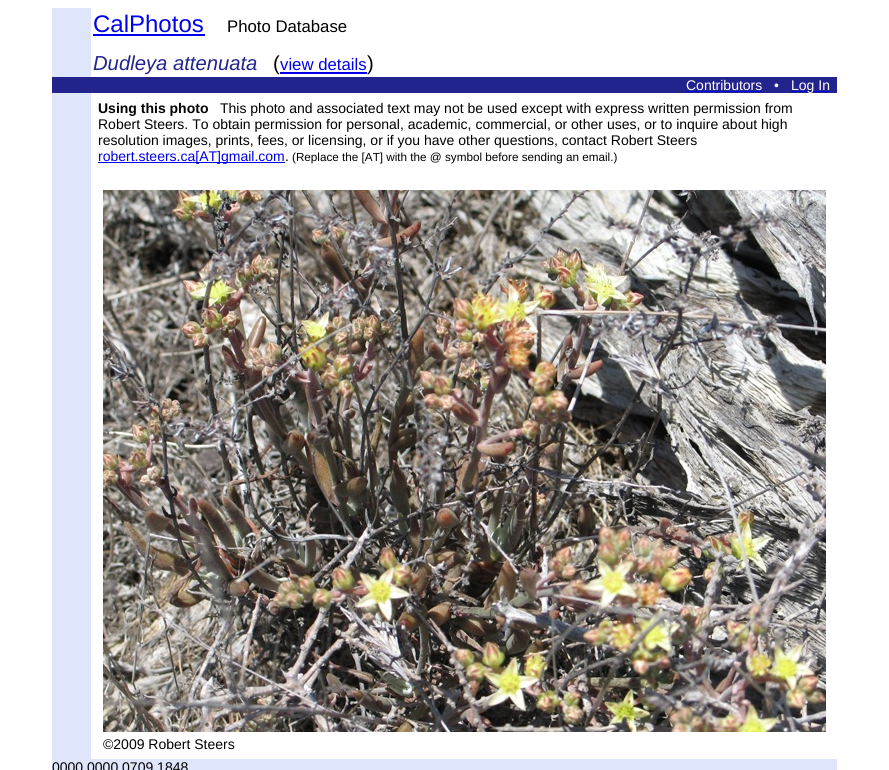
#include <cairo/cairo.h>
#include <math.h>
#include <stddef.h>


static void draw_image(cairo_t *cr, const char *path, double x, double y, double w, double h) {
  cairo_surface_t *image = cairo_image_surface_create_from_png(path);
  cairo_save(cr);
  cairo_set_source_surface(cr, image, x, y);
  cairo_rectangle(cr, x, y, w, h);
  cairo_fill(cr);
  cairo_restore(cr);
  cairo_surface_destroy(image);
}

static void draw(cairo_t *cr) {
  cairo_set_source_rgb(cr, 1, 1, 1);
  cairo_paint(cr);
  cairo_set_source_rgb(cr, 223 / 255.0, 229 / 255.0, 250 / 255.0);
  cairo_rectangle(cr, 52, 8, 39, 69);
  cairo_fill(cr);
  cairo_set_source_rgb(cr, 0, 0, 238 / 255.0);
  cairo_rectangle(cr, 93, 34, 112, 2);
  cairo_fill(cr);
  cairo_rectangle(cr, 280, 72, 87, 2);
  cairo_fill(cr);
  cairo_set_source_rgb(cr, 35 / 255.0, 35 / 255.0, 142 / 255.0);
  cairo_rectangle(cr, 52, 77, 785, 16);
  cairo_fill(cr);
  cairo_set_source_rgb(cr, 0, 0, 238 / 255.0);
  cairo_rectangle(cr, 686, 91, 76, 1);
  cairo_fill(cr);
  cairo_rectangle(cr, 791, 91, 39, 1);
  cairo_fill(cr);
  cairo_set_source_rgb(cr, 223 / 255.0, 229 / 255.0, 250 / 255.0);
  cairo_rectangle(cr, 52, 93, 39, 666);
  cairo_fill(cr);
  cairo_set_source_rgb(cr, 0, 0, 238 / 255.0);
  cairo_rectangle(cr, 98, 162, 187, 1);
  cairo_fill(cr);
  draw_image(cr, "images/1.png", 103, 190, 723, 542);
  cairo_set_source_rgb(cr, 223 / 255.0, 229 / 255.0, 250 / 255.0);
  cairo_rectangle(cr, 52, 759, 785, 11);
  cairo_fill(cr);
  cairo_select_font_face(cr, "Liberation Sans", CAIRO_FONT_SLANT_NORMAL, CAIRO_FONT_WEIGHT_NORMAL);
  cairo_set_font_size(cr, 24);
  cairo_set_source_rgb(cr, 0, 0, 238 / 255.0);
  cairo_move_to(cr, 93, 32);
  cairo_show_text(cr, "CalPhotos");
  cairo_set_font_size(cr, 16.75);
  cairo_set_source_rgb(cr, 0, 0, 0);
  cairo_move_to(cr, 227, 32);
  cairo_show_text(cr, "Photo Database");
  cairo_select_font_face(cr, "Liberation Sans", CAIRO_FONT_SLANT_ITALIC, CAIRO_FONT_WEIGHT_NORMAL);
  cairo_set_font_size(cr, 20.25);
  cairo_set_source_rgb(cr, 35 / 255.0, 35 / 255.0, 142 / 255.0);
  cairo_move_to(cr, 93, 70);
  cairo_show_text(cr, "Dudleya attenuata");
  cairo_select_font_face(cr, "Liberation Sans", CAIRO_FONT_SLANT_NORMAL, CAIRO_FONT_WEIGHT_NORMAL);
  cairo_set_source_rgb(cr, 0, 0, 0);
  cairo_move_to(cr, 273, 70);
  cairo_show_text(cr, "(");
  cairo_set_font_size(cr, 16.75);
  cairo_set_source_rgb(cr, 0, 0, 238 / 255.0);
  cairo_move_to(cr, 280, 70);
  cairo_show_text(cr, "view details");
  cairo_set_font_size(cr, 20.25);
  cairo_set_source_rgb(cr, 0, 0, 0);
  cairo_move_to(cr, 367, 70);
  cairo_show_text(cr, ")");
  cairo_set_font_size(cr, 14);
  cairo_set_source_rgb(cr, 1, 1, 1);
  cairo_move_to(cr, 686, 90);
  cairo_show_text(cr, "Contributors");
  cairo_move_to(cr, 774, 90);
  cairo_show_text(cr, "•");
  cairo_move_to(cr, 791, 90);
  cairo_show_text(cr, "Log In");
  cairo_select_font_face(cr, "Liberation Sans", CAIRO_FONT_SLANT_NORMAL, CAIRO_FONT_WEIGHT_BOLD);
  cairo_set_source_rgb(cr, 0, 0, 0);
  cairo_move_to(cr, 98, 113);
  cairo_show_text(cr, "Using this photo");
  cairo_select_font_face(cr, "Liberation Sans", CAIRO_FONT_SLANT_NORMAL, CAIRO_FONT_WEIGHT_NORMAL);
  cairo_move_to(cr, 220, 113);
  cairo_show_text(cr, "This photo and associated text may not be used except with express written permission from");
  cairo_move_to(cr, 98, 129);
  cairo_show_text(cr, "Robert Steers. To obtain permission for personal, academic, commercial, or other uses, or to inquire about high");
  cairo_move_to(cr, 98, 145);
  cairo_show_text(cr, "resolution images, prints, fees, or licensing, or if you have other questions, contact Robert Steers");
  cairo_set_source_rgb(cr, 0, 0, 238 / 255.0);
  cairo_move_to(cr, 98, 161);
  cairo_show_text(cr, "robert.steers.ca[AT]gmail.com");
  cairo_set_source_rgb(cr, 0, 0, 0);
  cairo_move_to(cr, 285, 161);
  cairo_show_text(cr, ".");
  cairo_set_font_size(cr, 11.7);
  cairo_move_to(cr, 292, 161);
  cairo_show_text(cr, "(Replace the [AT] with the @ symbol before sending an email.)");
  cairo_set_font_size(cr, 14);
  cairo_move_to(cr, 103, 749);
  cairo_show_text(cr, "©2009 Robert Steers");
  cairo_move_to(cr, 52, 772);
  cairo_show_text(cr, "0000 0000 0709 1848");
}

int main(void) {
  cairo_surface_t *surface = cairo_image_surface_create(CAIRO_FORMAT_RGB24, 889, 770);
  cairo_t *cr = cairo_create(surface);
  cairo_font_options_t *options = cairo_font_options_create();
  cairo_font_options_set_hint_metrics(options, CAIRO_HINT_METRICS_OFF);
  cairo_font_options_set_hint_style(options, CAIRO_HINT_STYLE_NONE);
  cairo_set_font_options(cr, options);
  cairo_set_miter_limit(cr, 4);
  draw(cr);
  cairo_surface_write_to_png(surface, "out.png");
  cairo_font_options_destroy(options);
  cairo_destroy(cr);
  cairo_surface_destroy(surface);
  return 0;
}
